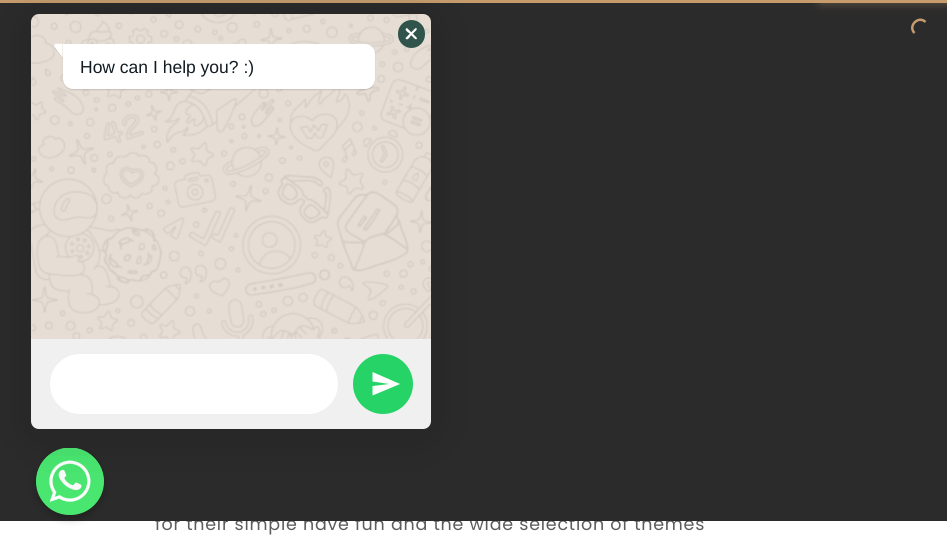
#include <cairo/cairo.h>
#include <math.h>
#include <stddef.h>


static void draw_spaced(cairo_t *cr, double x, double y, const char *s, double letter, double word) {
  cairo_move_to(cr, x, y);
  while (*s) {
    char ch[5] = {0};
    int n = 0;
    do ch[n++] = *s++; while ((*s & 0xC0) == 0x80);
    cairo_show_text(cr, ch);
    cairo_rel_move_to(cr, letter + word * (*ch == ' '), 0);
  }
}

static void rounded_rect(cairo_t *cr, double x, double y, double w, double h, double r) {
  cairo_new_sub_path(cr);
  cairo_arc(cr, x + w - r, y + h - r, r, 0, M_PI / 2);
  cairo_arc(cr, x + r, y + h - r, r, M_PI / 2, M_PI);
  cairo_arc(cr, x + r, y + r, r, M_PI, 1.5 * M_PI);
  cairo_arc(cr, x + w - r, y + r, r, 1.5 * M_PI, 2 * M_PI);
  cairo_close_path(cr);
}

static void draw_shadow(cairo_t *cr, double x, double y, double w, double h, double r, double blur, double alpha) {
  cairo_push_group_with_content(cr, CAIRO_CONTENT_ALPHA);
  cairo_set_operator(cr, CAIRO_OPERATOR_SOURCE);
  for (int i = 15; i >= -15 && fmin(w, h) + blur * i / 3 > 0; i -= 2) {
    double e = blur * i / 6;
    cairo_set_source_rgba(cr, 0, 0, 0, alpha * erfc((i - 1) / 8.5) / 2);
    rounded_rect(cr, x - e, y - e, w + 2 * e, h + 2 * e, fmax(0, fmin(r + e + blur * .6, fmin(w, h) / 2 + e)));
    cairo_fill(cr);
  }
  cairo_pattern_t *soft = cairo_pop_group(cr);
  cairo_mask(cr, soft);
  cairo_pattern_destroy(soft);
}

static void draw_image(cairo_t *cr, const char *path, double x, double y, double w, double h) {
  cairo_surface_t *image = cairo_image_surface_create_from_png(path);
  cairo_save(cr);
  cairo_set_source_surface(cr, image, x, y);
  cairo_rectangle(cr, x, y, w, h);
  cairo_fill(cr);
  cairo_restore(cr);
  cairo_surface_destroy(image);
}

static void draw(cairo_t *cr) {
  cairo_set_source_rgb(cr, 1, 1, 1);
  cairo_paint(cr);
  cairo_set_source_rgb(cr, 198 / 255.0, 156 / 255.0, 109 / 255.0);
  cairo_rectangle(cr, 0, 0, 947, 3);
  cairo_fill(cr);
  cairo_select_font_face(cr, "Poppins", CAIRO_FONT_SLANT_NORMAL, CAIRO_FONT_WEIGHT_NORMAL);
  cairo_set_font_size(cr, 17.5);
  cairo_set_source_rgb(cr, 92 / 255.0, 92 / 255.0, 92 / 255.0);
  draw_spaced(cr, 155, 530, "for their simple have fun and the wide selection of themes", 0.75, 0);
  cairo_set_source_rgb(cr, 43 / 255.0, 43 / 255.0, 43 / 255.0);
  cairo_rectangle(cr, 0, 3, 947, 518);
  cairo_fill(cr);
  cairo_set_source_rgb(cr, 0, 0, 0);
  draw_shadow(cr, 36, 451, 68, 68, 34, 4, 0.25);
  cairo_set_source_rgb(cr, 73 / 255.0, 230 / 255.0, 112 / 255.0);
  rounded_rect(cr, 36, 448, 68, 67, 33.5);
  cairo_fill(cr);
  draw_image(cr, "images/3.png", 36, 448, 68, 67);
  cairo_set_source_rgb(cr, 0, 0, 0);
  draw_shadow(cr, 31, 20, 400, 415, 8, 25, 0.16);
  cairo_set_source_rgb(cr, 230 / 255.0, 221 / 255.0, 212 / 255.0);
  cairo_new_path(cr);
  cairo_move_to(cr, 39, 14);
  cairo_line_to(cr, 423, 14);
  cairo_curve_to(cr, 427.5, 14, 431, 17.5, 431, 22);
  cairo_line_to(cr, 431, 339);
  cairo_line_to(cr, 31, 339);
  cairo_line_to(cr, 31, 22);
  cairo_curve_to(cr, 31, 17.5, 34.5, 14, 39, 14);
  cairo_close_path(cr);
  cairo_fill(cr);
  draw_image(cr, "images/1.png", 31, 14, 400, 325);
  cairo_set_source_rgb(cr, 0, 0, 0);
  draw_shadow(cr, 63, 45, 312, 45, 10, 0.5, 0.13);
  draw_image(cr, "images/2.png", 53, 43, 10, 16);
  cairo_set_source_rgb(cr, 1, 1, 1);
  cairo_new_path(cr);
  cairo_move_to(cr, 63, 44);
  cairo_line_to(cr, 365, 44);
  cairo_curve_to(cr, 370.5, 44, 375, 48.5, 375, 54);
  cairo_line_to(cr, 375, 79);
  cairo_curve_to(cr, 375, 84.5, 370.5, 89, 365, 89);
  cairo_line_to(cr, 73, 89);
  cairo_curve_to(cr, 67.5, 89, 63, 84.5, 63, 79);
  cairo_close_path(cr);
  cairo_fill(cr);
  cairo_select_font_face(cr, "Liberation Sans", CAIRO_FONT_SLANT_NORMAL, CAIRO_FONT_WEIGHT_NORMAL);
  cairo_set_source_rgb(cr, 17 / 255.0, 27 / 255.0, 33 / 255.0);
  cairo_move_to(cr, 80, 73);
  cairo_show_text(cr, "How can I help you? :)");
  cairo_set_source_rgb(cr, 48 / 255.0, 83 / 255.0, 75 / 255.0);
  rounded_rect(cr, 398, 20, 27, 28, 13.5);
  cairo_fill(cr);
  cairo_set_source_rgb(cr, 1, 1, 1);
  cairo_new_path(cr);
  cairo_move_to(cr, 407.5, 28.5);
  cairo_line_to(cr, 416.5, 37.5);
  cairo_line_to(cr, 417, 38.5);
  cairo_curve_to(cr, 416, 40.5, 414, 38, 413.5, 37.5);
  cairo_line_to(cr, 409, 33);
  cairo_curve_to(cr, 408, 32.5, 404.5, 30, 406, 28.5);
  cairo_curve_to(cr, 406.5, 28, 407, 28, 407.5, 28.5);
  cairo_close_path(cr);
  cairo_fill(cr);
  cairo_new_path(cr);
  cairo_move_to(cr, 406, 37.5);
  cairo_line_to(cr, 415, 28.5);
  cairo_line_to(cr, 416, 28);
  cairo_curve_to(cr, 418, 29, 415.5, 31, 415, 31.5);
  cairo_line_to(cr, 410.5, 36);
  cairo_curve_to(cr, 410, 37, 407.5, 40.5, 406, 39);
  cairo_curve_to(cr, 405.5, 38.5, 405.5, 38, 406, 37.5);
  cairo_close_path(cr);
  cairo_fill(cr);
  cairo_set_source_rgb(cr, 240 / 255.0, 240 / 255.0, 240 / 255.0);
  cairo_new_path(cr);
  cairo_move_to(cr, 31, 339);
  cairo_line_to(cr, 431, 339);
  cairo_line_to(cr, 431, 421);
  cairo_curve_to(cr, 431, 425.5, 427.5, 429, 423, 429);
  cairo_line_to(cr, 39, 429);
  cairo_curve_to(cr, 34.5, 429, 31, 425.5, 31, 421);
  cairo_close_path(cr);
  cairo_fill(cr);
  cairo_set_source_rgb(cr, 37 / 255.0, 211 / 255.0, 102 / 255.0);
  cairo_arc(cr, 383, 384, 30, 0, 2 * M_PI);
  cairo_fill(cr);
  cairo_set_source_rgb(cr, 1, 1, 1);
  cairo_new_path(cr);
  cairo_move_to(cr, 372.5, 395.5);
  cairo_line_to(cr, 400, 384);
  cairo_line_to(cr, 372.5, 372);
  cairo_line_to(cr, 372.5, 381.5);
  cairo_line_to(cr, 389, 384);
  cairo_line_to(cr, 372.5, 386);
  cairo_close_path(cr);
  cairo_fill(cr);
  rounded_rect(cr, 50, 354, 288, 60, 30);
  cairo_fill(cr);
  cairo_set_source_rgb(cr, 198 / 255.0, 156 / 255.0, 109 / 255.0);
  draw_shadow(cr, 823, -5, 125, 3, 0, 6.5, 1);
  cairo_new_path(cr);
  cairo_move_to(cr, 914.5, 33);
  cairo_curve_to(cr, 907.5, 26, 918.5, 15, 925.5, 22);
  cairo_set_source_rgb(cr, 198 / 255.0, 156 / 255.0, 109 / 255.0);
  cairo_set_line_width(cr, 2.5);
  cairo_stroke(cr);
}

int main(void) {
  cairo_surface_t *surface = cairo_image_surface_create(CAIRO_FORMAT_RGB24, 947, 546);
  cairo_t *cr = cairo_create(surface);
  cairo_font_options_t *options = cairo_font_options_create();
  cairo_font_options_set_hint_metrics(options, CAIRO_HINT_METRICS_OFF);
  cairo_font_options_set_hint_style(options, CAIRO_HINT_STYLE_NONE);
  cairo_set_font_options(cr, options);
  cairo_set_miter_limit(cr, 4);
  draw(cr);
  cairo_surface_write_to_png(surface, "out.png");
  cairo_font_options_destroy(options);
  cairo_destroy(cr);
  cairo_surface_destroy(surface);
  return 0;
}
